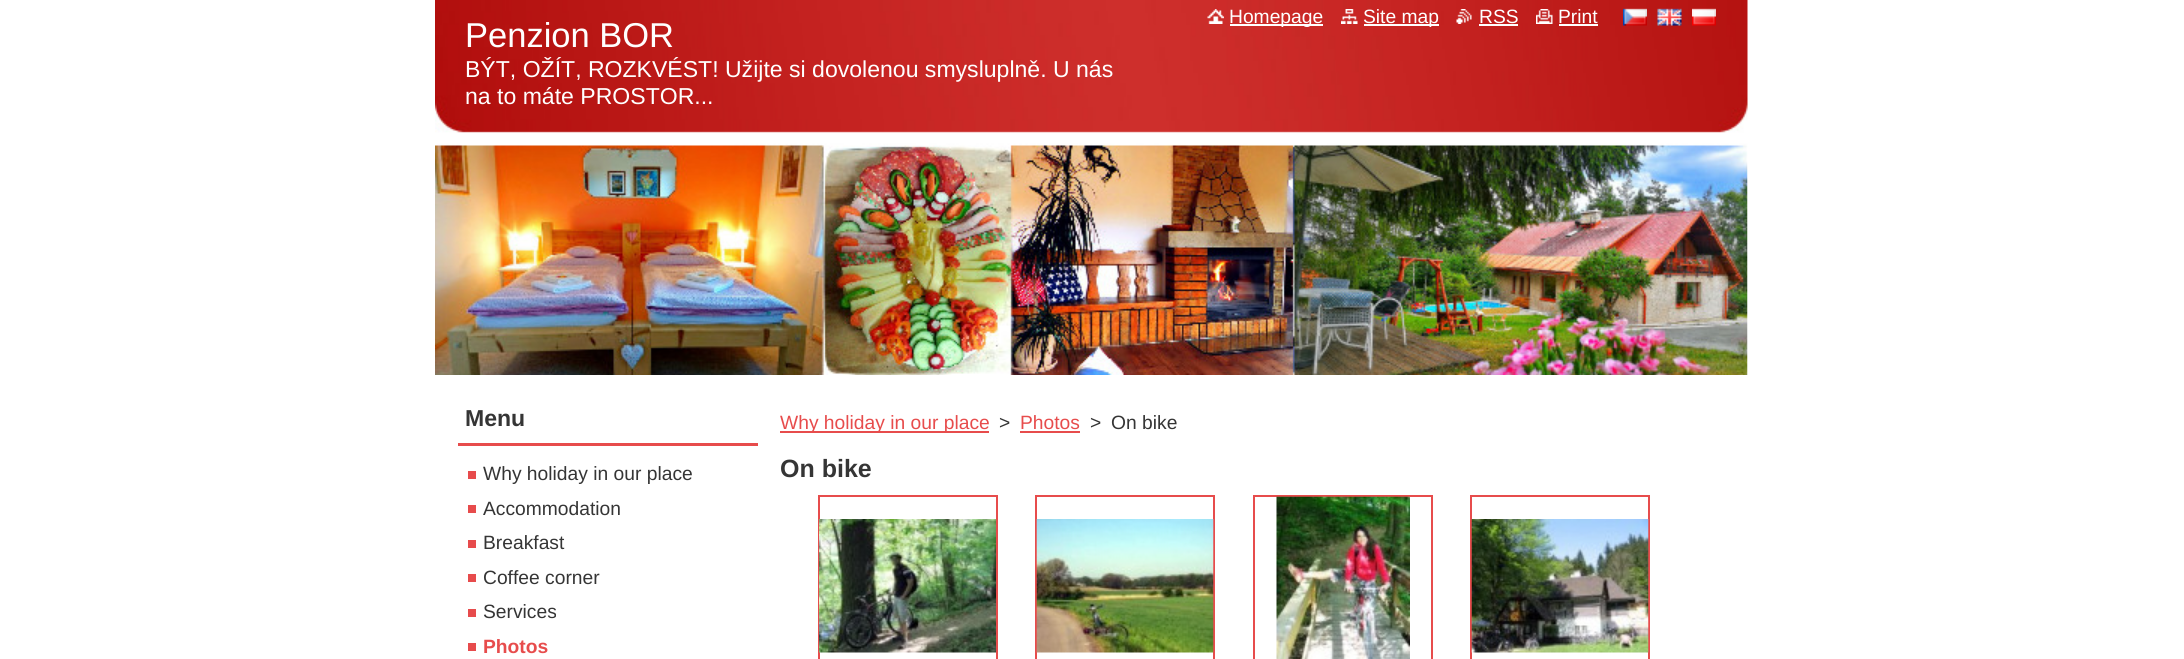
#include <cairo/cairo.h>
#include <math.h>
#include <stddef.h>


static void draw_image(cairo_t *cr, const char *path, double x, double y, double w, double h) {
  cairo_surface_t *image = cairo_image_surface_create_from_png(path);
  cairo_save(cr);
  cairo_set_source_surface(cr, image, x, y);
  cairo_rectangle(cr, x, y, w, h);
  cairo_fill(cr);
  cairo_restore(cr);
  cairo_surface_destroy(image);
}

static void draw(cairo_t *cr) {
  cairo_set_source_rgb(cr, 1, 1, 1);
  cairo_paint(cr);
  draw_image(cr, "images/8.png", 435, 0, 1313, 146);
  draw_image(cr, "images/1.png", 1207, 9, 17, 15);
  cairo_set_source_rgb(cr, 1, 1, 1);
  cairo_rectangle(cr, 1230, 24, 93, 2);
  cairo_fill(cr);
  draw_image(cr, "images/2.png", 1341, 9, 17, 15);
  cairo_rectangle(cr, 1364, 24, 75, 2);
  cairo_fill(cr);
  draw_image(cr, "images/3.png", 1456, 9, 16, 15);
  cairo_rectangle(cr, 1479, 24, 39, 2);
  cairo_fill(cr);
  draw_image(cr, "images/4.png", 1536, 9, 17, 15);
  cairo_rectangle(cr, 1559, 24, 39, 2);
  cairo_fill(cr);
  draw_image(cr, "images/5.png", 1623, 8, 24, 18);
  draw_image(cr, "images/6.png", 1657, 8, 25, 18);
  draw_image(cr, "images/7.png", 1692, 8, 24, 18);
  draw_image(cr, "images/9.png", 435, 145, 1313, 230);
  cairo_set_source_rgb(cr, 231 / 255.0, 76 / 255.0, 76 / 255.0);
  cairo_rectangle(cr, 458, 443, 300, 3);
  cairo_fill(cr);
  cairo_set_source_rgb(cr, 231 / 255.0, 75 / 255.0, 76 / 255.0);
  cairo_rectangle(cr, 468, 471, 8, 8);
  cairo_fill(cr);
  cairo_rectangle(cr, 468, 505, 8, 8);
  cairo_fill(cr);
  cairo_rectangle(cr, 468, 540, 8, 8);
  cairo_fill(cr);
  cairo_rectangle(cr, 468, 574, 8, 8);
  cairo_fill(cr);
  cairo_rectangle(cr, 468, 609, 8, 8);
  cairo_fill(cr);
  cairo_rectangle(cr, 468, 643, 8, 8);
  cairo_fill(cr);
  cairo_set_source_rgb(cr, 231 / 255.0, 76 / 255.0, 76 / 255.0);
  cairo_rectangle(cr, 780, 431, 209, 2);
  cairo_fill(cr);
  cairo_rectangle(cr, 1020, 431, 60, 2);
  cairo_fill(cr);
  cairo_rectangle(cr, 819, 496, 178, 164);
  cairo_stroke(cr);
  draw_image(cr, "images/10.png", 819, 519, 177, 134);
  cairo_rectangle(cr, 1036, 496, 178, 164);
  cairo_stroke(cr);
  draw_image(cr, "images/11.png", 1036, 519, 178, 134);
  cairo_rectangle(cr, 1254, 496, 178, 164);
  cairo_stroke(cr);
  draw_image(cr, "images/12.png", 1276, 496, 134, 163);
  cairo_rectangle(cr, 1471, 496, 178, 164);
  cairo_stroke(cr);
  draw_image(cr, "images/13.png", 1471, 519, 178, 134);
  cairo_select_font_face(cr, "Liberation Sans", CAIRO_FONT_SLANT_NORMAL, CAIRO_FONT_WEIGHT_NORMAL);
  cairo_set_font_size(cr, 19.25);
  cairo_set_source_rgb(cr, 1, 1, 1);
  cairo_move_to(cr, 1229, 23);
  cairo_show_text(cr, "Homepage");
  cairo_move_to(cr, 1363, 23);
  cairo_show_text(cr, "Site map");
  cairo_move_to(cr, 1479, 23);
  cairo_show_text(cr, "RSS");
  cairo_move_to(cr, 1558, 23);
  cairo_show_text(cr, "Print");
  cairo_set_font_size(cr, 34.5);
  cairo_move_to(cr, 465, 47);
  cairo_show_text(cr, "Penzion BOR");
  cairo_save(cr);
  cairo_rectangle(cr, 465, 57, 675, 54);
  cairo_clip(cr);
  cairo_set_font_size(cr, 23.05);
  cairo_move_to(cr, 465, 77);
  cairo_show_text(cr, "BÝT, OŽÍT, ROZKVÉST! Užijte si dovolenou smysluplně. U nás");
  cairo_restore(cr);
  cairo_set_font_size(cr, 23.05);
  cairo_move_to(cr, 465, 104);
  cairo_show_text(cr, "na to máte PROSTOR...");
  cairo_select_font_face(cr, "Liberation Sans", CAIRO_FONT_SLANT_NORMAL, CAIRO_FONT_WEIGHT_BOLD);
  cairo_set_source_rgb(cr, 53 / 255.0, 53 / 255.0, 53 / 255.0);
  cairo_move_to(cr, 465, 426);
  cairo_show_text(cr, "Menu");
  cairo_select_font_face(cr, "Liberation Sans", CAIRO_FONT_SLANT_NORMAL, CAIRO_FONT_WEIGHT_NORMAL);
  cairo_set_font_size(cr, 19.25);
  cairo_move_to(cr, 483, 480);
  cairo_show_text(cr, "Why holiday in our place");
  cairo_move_to(cr, 483, 515);
  cairo_show_text(cr, "Accommodation");
  cairo_move_to(cr, 483, 549);
  cairo_show_text(cr, "Breakfast");
  cairo_move_to(cr, 483, 584);
  cairo_show_text(cr, "Coffee corner");
  cairo_move_to(cr, 483, 618);
  cairo_show_text(cr, "Services");
  cairo_select_font_face(cr, "Liberation Sans", CAIRO_FONT_SLANT_NORMAL, CAIRO_FONT_WEIGHT_BOLD);
  cairo_set_source_rgb(cr, 231 / 255.0, 76 / 255.0, 76 / 255.0);
  cairo_move_to(cr, 483, 653);
  cairo_show_text(cr, "Photos");
  cairo_select_font_face(cr, "Liberation Sans", CAIRO_FONT_SLANT_NORMAL, CAIRO_FONT_WEIGHT_NORMAL);
  cairo_move_to(cr, 780, 429);
  cairo_show_text(cr, "Why holiday in our place");
  cairo_set_source_rgb(cr, 53 / 255.0, 53 / 255.0, 53 / 255.0);
  cairo_move_to(cr, 999, 429);
  cairo_show_text(cr, ">");
  cairo_set_source_rgb(cr, 231 / 255.0, 76 / 255.0, 76 / 255.0);
  cairo_move_to(cr, 1020, 429);
  cairo_show_text(cr, "Photos");
  cairo_set_source_rgb(cr, 53 / 255.0, 53 / 255.0, 53 / 255.0);
  cairo_move_to(cr, 1090, 429);
  cairo_show_text(cr, ">");
  cairo_move_to(cr, 1111, 429);
  cairo_show_text(cr, "On bike");
  cairo_select_font_face(cr, "Liberation Sans", CAIRO_FONT_SLANT_NORMAL, CAIRO_FONT_WEIGHT_BOLD);
  cairo_set_font_size(cr, 25);
  cairo_move_to(cr, 780, 477);
  cairo_show_text(cr, "On bike");
}

int main(void) {
  cairo_surface_t *surface = cairo_image_surface_create(CAIRO_FORMAT_RGB24, 2184, 659);
  cairo_t *cr = cairo_create(surface);
  cairo_font_options_t *options = cairo_font_options_create();
  cairo_font_options_set_hint_metrics(options, CAIRO_HINT_METRICS_OFF);
  cairo_font_options_set_hint_style(options, CAIRO_HINT_STYLE_NONE);
  cairo_set_font_options(cr, options);
  cairo_set_miter_limit(cr, 4);
  draw(cr);
  cairo_surface_write_to_png(surface, "out.png");
  cairo_font_options_destroy(options);
  cairo_destroy(cr);
  cairo_surface_destroy(surface);
  return 0;
}
